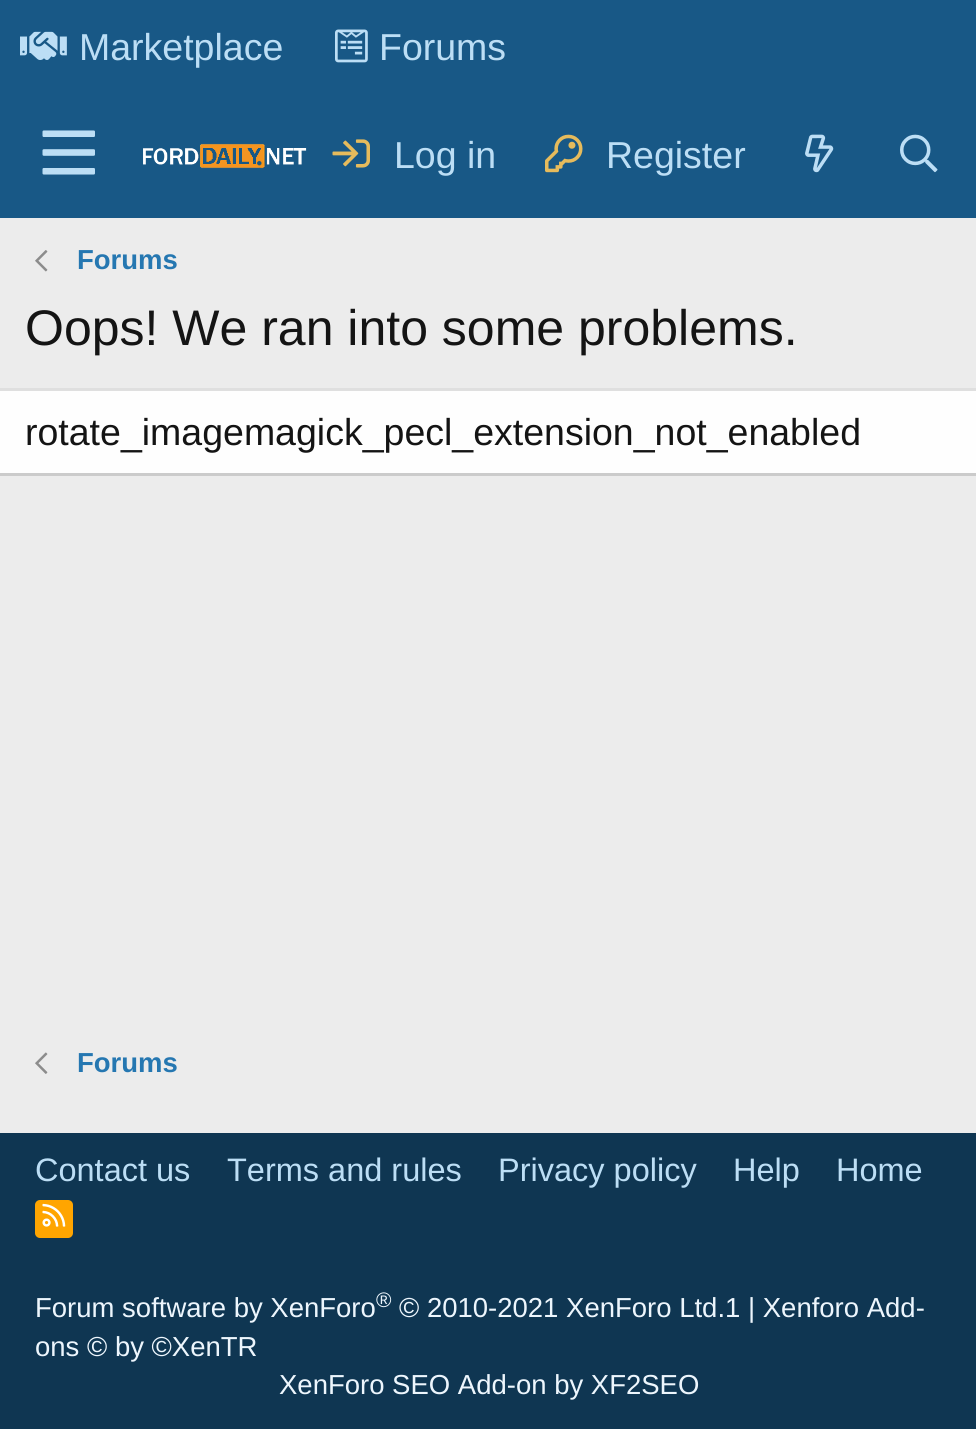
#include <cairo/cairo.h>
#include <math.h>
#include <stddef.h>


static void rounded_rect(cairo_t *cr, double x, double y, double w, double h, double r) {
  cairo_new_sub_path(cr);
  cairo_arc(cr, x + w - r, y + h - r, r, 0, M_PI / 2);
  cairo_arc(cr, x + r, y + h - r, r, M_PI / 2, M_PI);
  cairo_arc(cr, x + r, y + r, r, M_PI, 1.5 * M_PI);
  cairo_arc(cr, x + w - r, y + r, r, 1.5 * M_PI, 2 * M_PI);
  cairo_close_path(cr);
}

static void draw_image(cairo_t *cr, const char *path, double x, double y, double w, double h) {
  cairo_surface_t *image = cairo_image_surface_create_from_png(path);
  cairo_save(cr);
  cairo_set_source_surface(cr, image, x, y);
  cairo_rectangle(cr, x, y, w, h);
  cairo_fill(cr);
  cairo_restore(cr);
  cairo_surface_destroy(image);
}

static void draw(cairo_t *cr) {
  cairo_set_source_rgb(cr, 236 / 255.0, 236 / 255.0, 236 / 255.0);
  cairo_paint(cr);
  cairo_set_source_rgb(cr, 24 / 255.0, 88 / 255.0, 134 / 255.0);
  cairo_rectangle(cr, 0, 0, 976, 218);
  cairo_fill(cr);
  draw_image(cr, "images/1.png", 20, 31, 47, 29);
  draw_image(cr, "images/2.png", 335, 29, 33, 34);
  draw_image(cr, "images/3.png", 42, 130, 53, 45);
  draw_image(cr, "images/4.png", 143, 143, 164, 26);
  draw_image(cr, "images/5.png", 332, 139, 38, 29);
  draw_image(cr, "images/6.png", 545, 134, 38, 39);
  draw_image(cr, "images/7.png", 805, 134, 29, 39);
  draw_image(cr, "images/8.png", 900, 134, 38, 39);
  draw_image(cr, "images/9.png", 35, 250, 13, 22);
  cairo_set_source_rgb(cr, 254 / 255.0, 254 / 255.0, 254 / 255.0);
  cairo_rectangle(cr, 0, 391, 976, 82);
  cairo_fill(cr);
  cairo_set_source_rgb(cr, 223 / 255.0, 223 / 255.0, 223 / 255.0);
  cairo_rectangle(cr, 0, 388, 976, 3);
  cairo_fill(cr);
  cairo_set_source_rgb(cr, 203 / 255.0, 203 / 255.0, 203 / 255.0);
  cairo_rectangle(cr, 0, 473, 976, 3);
  cairo_fill(cr);
  draw_image(cr, "images/10.png", 35, 1052, 13, 22);
  cairo_set_source_rgb(cr, 15 / 255.0, 54 / 255.0, 82 / 255.0);
  cairo_rectangle(cr, 0, 1133, 976, 296);
  cairo_fill(cr);
  cairo_set_source_rgb(cr, 1, 165 / 255.0, 0);
  rounded_rect(cr, 35, 1200, 38, 38, 5);
  cairo_fill(cr);
  draw_image(cr, "images/11.png", 42, 1203, 24, 24);
  cairo_select_font_face(cr, "Liberation Sans", CAIRO_FONT_SLANT_NORMAL, CAIRO_FONT_WEIGHT_NORMAL);
  cairo_set_font_size(cr, 37.5);
  cairo_set_source_rgb(cr, 188 / 255.0, 222 / 255.0, 245 / 255.0);
  cairo_move_to(cr, 79, 60);
  cairo_show_text(cr, "Marketplace");
  cairo_move_to(cr, 379, 60);
  cairo_show_text(cr, "Forums");
  cairo_move_to(cr, 394, 168);
  cairo_show_text(cr, "Log in");
  cairo_move_to(cr, 606, 168);
  cairo_show_text(cr, "Register");
  cairo_select_font_face(cr, "Liberation Sans", CAIRO_FONT_SLANT_NORMAL, CAIRO_FONT_WEIGHT_BOLD);
  cairo_set_font_size(cr, 27.5);
  cairo_set_source_rgb(cr, 37 / 255.0, 119 / 255.0, 177 / 255.0);
  cairo_move_to(cr, 77, 269);
  cairo_show_text(cr, "Forums");
  cairo_select_font_face(cr, "Liberation Sans", CAIRO_FONT_SLANT_NORMAL, CAIRO_FONT_WEIGHT_NORMAL);
  cairo_set_font_size(cr, 50);
  cairo_set_source_rgb(cr, 20 / 255.0, 20 / 255.0, 20 / 255.0);
  cairo_move_to(cr, 25, 345);
  cairo_show_text(cr, "Oops! We ran into some problems.");
  cairo_set_font_size(cr, 37.5);
  cairo_move_to(cr, 25, 445);
  cairo_show_text(cr, "rotate_imagemagick_pecl_extension_not_enabled");
  cairo_select_font_face(cr, "Liberation Sans", CAIRO_FONT_SLANT_NORMAL, CAIRO_FONT_WEIGHT_BOLD);
  cairo_set_font_size(cr, 27.5);
  cairo_set_source_rgb(cr, 37 / 255.0, 119 / 255.0, 177 / 255.0);
  cairo_move_to(cr, 77, 1072);
  cairo_show_text(cr, "Forums");
  cairo_select_font_face(cr, "Liberation Sans", CAIRO_FONT_SLANT_NORMAL, CAIRO_FONT_WEIGHT_NORMAL);
  cairo_set_font_size(cr, 32.5);
  cairo_set_source_rgb(cr, 188 / 255.0, 222 / 255.0, 245 / 255.0);
  cairo_move_to(cr, 35, 1181);
  cairo_show_text(cr, "Contact us");
  cairo_move_to(cr, 227, 1181);
  cairo_show_text(cr, "Terms and rules");
  cairo_move_to(cr, 498, 1181);
  cairo_show_text(cr, "Privacy policy");
  cairo_move_to(cr, 733, 1181);
  cairo_show_text(cr, "Help");
  cairo_move_to(cr, 836, 1181);
  cairo_show_text(cr, "Home");
  cairo_set_font_size(cr, 27.5);
  cairo_set_source_rgb(cr, 237 / 255.0, 246 / 255.0, 253 / 255.0);
  cairo_move_to(cr, 35, 1317);
  cairo_show_text(cr, "Forum software by XenForo");
  cairo_set_font_size(cr, 21);
  cairo_move_to(cr, 376, 1307);
  cairo_show_text(cr, "®");
  cairo_set_font_size(cr, 27.5);
  cairo_move_to(cr, 399, 1317);
  cairo_show_text(cr, "© 2010-2021 XenForo Ltd.1 | Xenforo Add-");
  cairo_move_to(cr, 35, 1356);
  cairo_show_text(cr, "ons © by ©XenTR");
  cairo_move_to(cr, 279, 1394);
  cairo_show_text(cr, "XenForo SEO Add-on by XF2SEO");
}

int main(void) {
  cairo_surface_t *surface = cairo_image_surface_create(CAIRO_FORMAT_RGB24, 976, 1429);
  cairo_t *cr = cairo_create(surface);
  cairo_font_options_t *options = cairo_font_options_create();
  cairo_font_options_set_hint_metrics(options, CAIRO_HINT_METRICS_OFF);
  cairo_font_options_set_hint_style(options, CAIRO_HINT_STYLE_NONE);
  cairo_set_font_options(cr, options);
  cairo_set_miter_limit(cr, 4);
  draw(cr);
  cairo_surface_write_to_png(surface, "out.png");
  cairo_font_options_destroy(options);
  cairo_destroy(cr);
  cairo_surface_destroy(surface);
  return 0;
}
